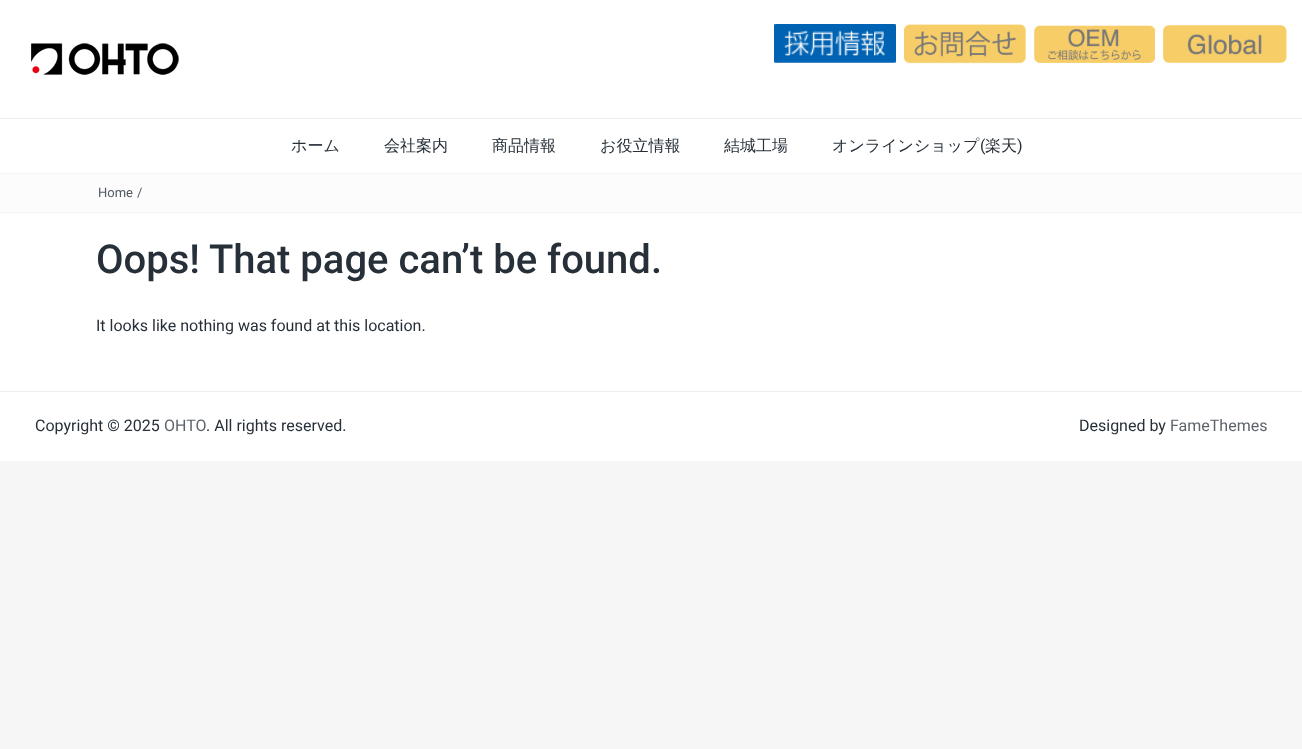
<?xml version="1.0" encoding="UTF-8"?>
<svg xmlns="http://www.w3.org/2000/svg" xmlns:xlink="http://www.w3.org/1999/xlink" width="1302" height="749">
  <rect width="100%" height="100%" fill="#f6f6f6" />
  <rect width="1302" height="461" fill="#ffffff" />
  <image x="31" y="43" width="148" height="32" xlink:href="image1.png" />
  <image x="774" y="24" width="122" height="39" xlink:href="image2.png" />
  <image x="904" y="24" width="122" height="40" xlink:href="image3.png" />
  <image x="1034" y="25" width="121" height="38" xlink:href="image4.png" />
  <image x="1163" y="25" width="124" height="38" xlink:href="image5.png" />
  <rect y="118" width="1302" height="1" fill="#ededed" />
  <rect y="174" width="1302" height="38" fill="#fcfcfc" />
  <rect y="173" width="1302" height="1" fill="#f4f4f4" />
  <rect y="212" width="1302" height="1" fill="#f4f4f4" />
  <rect y="391" width="1302" height="1" fill="#ededed" />
  <text x="291" y="151" style="font-family: WenQuanYi Zen Hei; font-size: 16px; font-weight: 500; fill: #273039">ホーム</text>
  <text x="384" y="151" style="font-family: WenQuanYi Zen Hei; font-size: 16px; font-weight: 500; fill: #273039">会社案内</text>
  <text x="492" y="151" style="font-family: WenQuanYi Zen Hei; font-size: 16px; font-weight: 500; fill: #273039">商品情報</text>
  <text x="600" y="151" style="font-family: WenQuanYi Zen Hei; font-size: 16px; font-weight: 500; fill: #273039">お役立情報</text>
  <text x="724" y="151" style="font-family: WenQuanYi Zen Hei; font-size: 16px; font-weight: 500; fill: #273039">結城工場</text>
  <text x="832" y="151" style="font-family: WenQuanYi Zen Hei; font-size: 16px; font-weight: 500; fill: #273039">オンラインショップ</text>
  <text x="980" y="151" style="font-family: Roboto; font-size: 16px; fill: #273039">(</text>
  <text x="985" y="151" style="font-family: WenQuanYi Zen Hei; font-size: 16px; font-weight: 500; fill: #273039">楽天</text>
  <text x="1017" y="151" style="font-family: Roboto; font-size: 16px; fill: #273039">)</text>
  <text x="98" y="197" style="font-family: Roboto; font-size: 13px; fill: #525960">Home</text>
  <text x="137" y="197" style="font-family: Roboto; font-size: 13px; fill: #525960">/</text>
  <text x="96" y="273" style="font-family: Roboto; font-size: 40px; font-weight: 500; fill: #273039">Oops! That page can’t be found.</text>
  <text x="96" y="331" style="font-family: Roboto; font-size: 16px; fill: #273039">It looks like nothing was found at this location.</text>
  <text x="35" y="431" style="font-family: Roboto; font-size: 16px; fill: #273039">Copyright © 2025</text>
  <text x="164" y="431" style="font-family: Roboto; font-size: 16px; fill: #5d646b">OHTO</text>
  <text x="206" y="431" style="font-family: Roboto; font-size: 16px; fill: #273039">. All rights reserved.</text>
  <text x="1079" y="431" style="font-family: Roboto; font-size: 16px; fill: #273039">Designed by</text>
  <text x="1170" y="431" style="font-family: Roboto; font-size: 16px; fill: #5d646b">FameThemes</text>
</svg>
